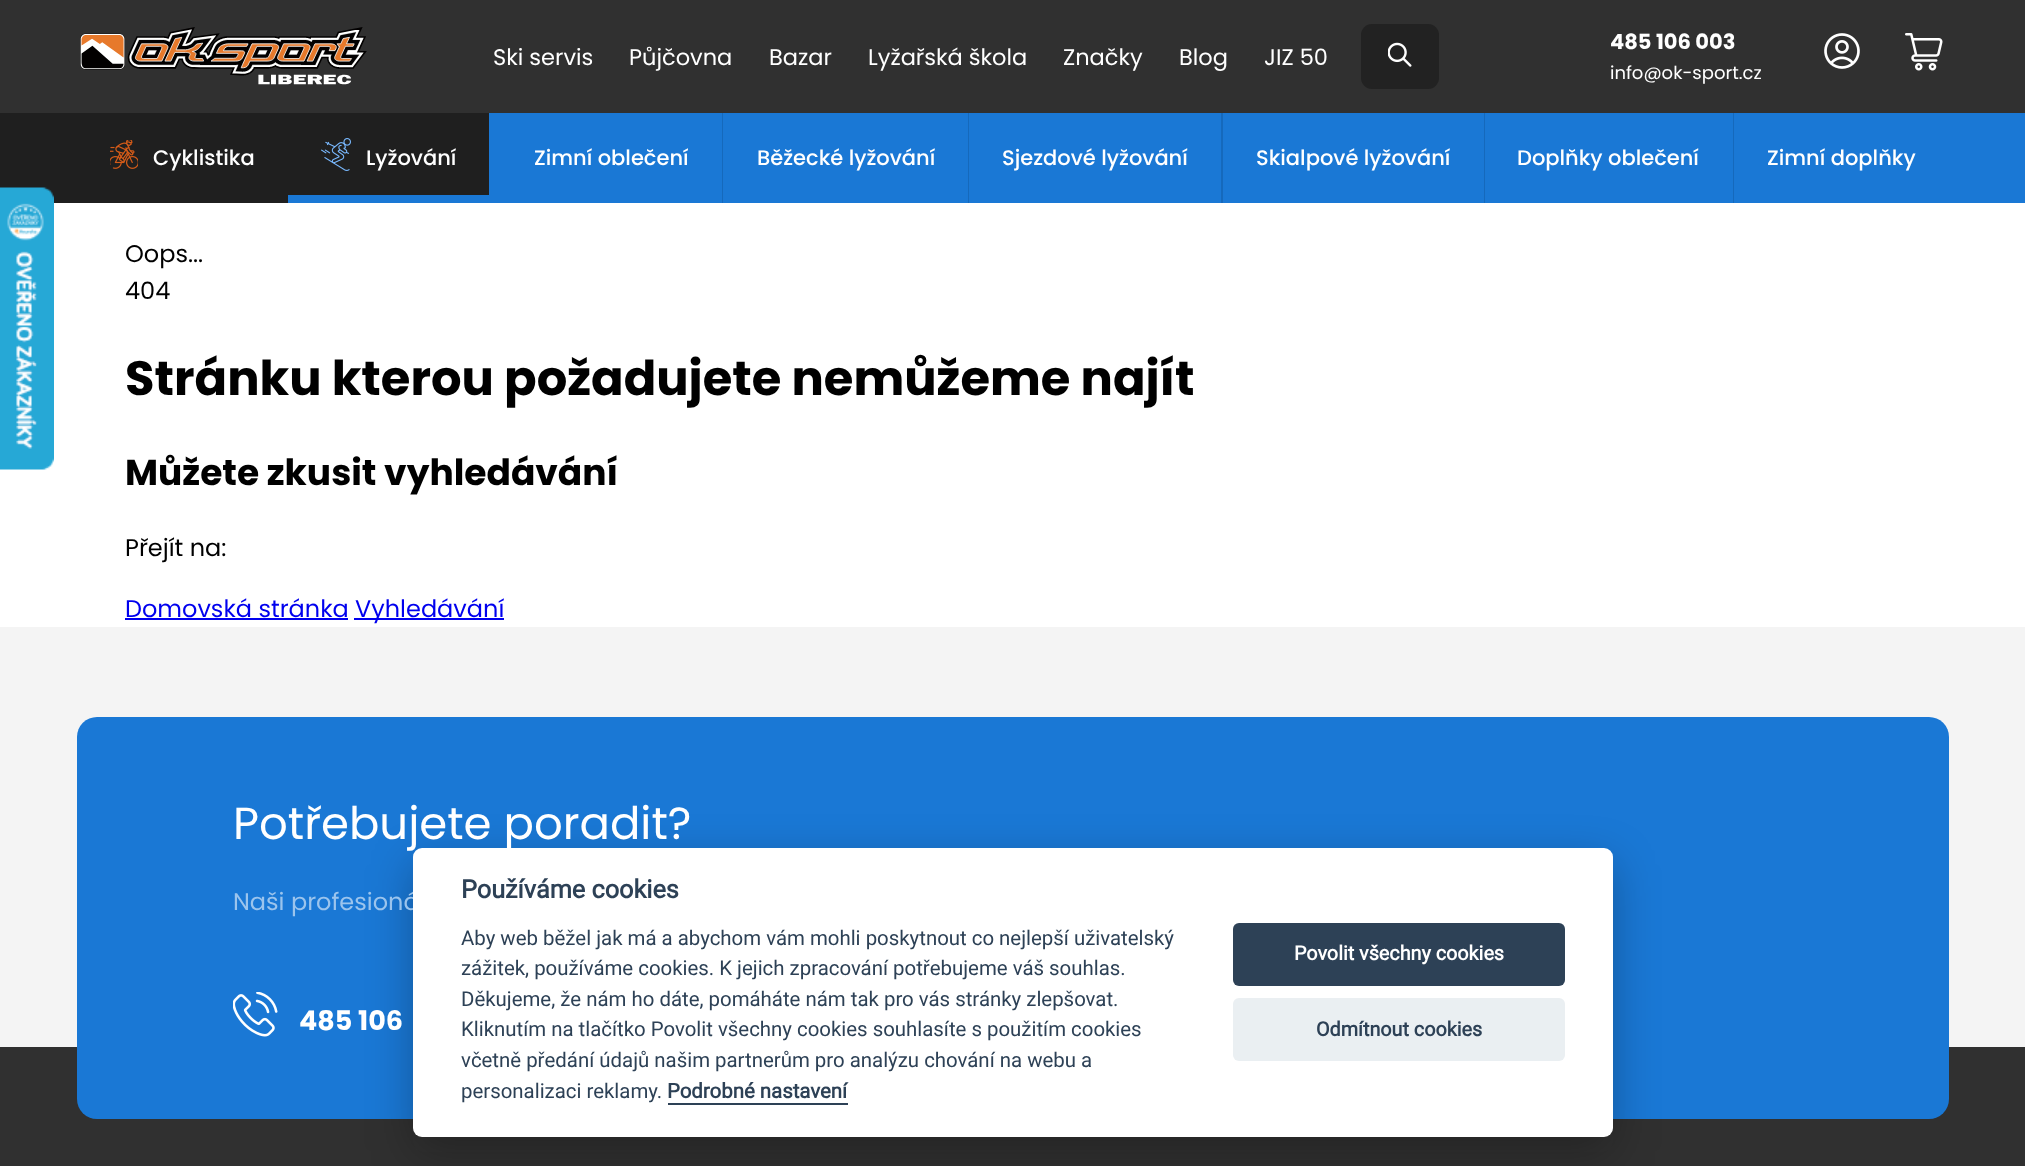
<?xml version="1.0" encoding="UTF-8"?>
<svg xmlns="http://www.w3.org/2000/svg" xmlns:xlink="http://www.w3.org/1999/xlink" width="2025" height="1166">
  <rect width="100%" height="100%" fill="#ffffff" />
  <rect y="113" width="489" height="90" fill="#1f1f1f" />
  <image x="0" y="187" width="54" height="283" xlink:href="image1.png" />
  <rect width="2025" height="113" fill="#303030" />
  <image x="80" y="27" width="287" height="58" xlink:href="image2.png" />
  <rect x="1361" y="24" width="78" height="65" rx="11" fill="#222222" />
  <image x="1388" y="42" width="24" height="25" xlink:href="image3.png" />
  <image x="1824" y="33" width="36" height="36" xlink:href="image4.png" />
  <image x="1905" y="33" width="38" height="38" xlink:href="image5.png" />
  <rect x="1734" y="113" width="291" height="90" fill="#1a78d5" />
  <image x="110" y="140" width="28" height="29" xlink:href="image6.png" />
  <image x="321" y="138" width="30" height="33" xlink:href="image7.png" />
  <rect x="288" y="195" width="201" height="8" fill="#1a78d5" />
  <rect x="489" y="113" width="995" height="90" fill="#1a78d5" />
  <rect x="722" y="113" width="1" height="90" fill="#1569bc" />
  <rect x="968" y="113" width="1" height="90" fill="#1569bc" />
  <rect x="1221" y="113" width="2" height="90" fill="#1569bc" />
  <rect x="1484" y="113" width="1" height="90" fill="#1569bc" />
  <rect x="1485" y="113" width="248" height="90" fill="#1a78d5" />
  <rect x="1733" y="113" width="1" height="90" fill="#1569bc" />
  <rect x="125" y="618" width="223" height="2" fill="#0000ee" />
  <rect x="354" y="618" width="150" height="2" fill="#0000ee" />
  <rect y="627" width="2025" height="420" fill="#f4f4f4" />
  <rect y="1047" width="2025" height="119" fill="#303030" />
  <rect x="77" y="717" width="1872" height="402" rx="20" fill="#1a78d5" />
  <image x="233" y="992" width="45" height="45" xlink:href="image8.png" />
  <rect x="413" y="863" width="1200" height="289" rx="9" fill="#020203" fill-opacity="0.28" filter="blur(22.5px)" />
  <text x="493" y="65" style="font-family: Poppins; font-size: 22.5px; fill: #ffffff">Ski servis</text>
  <text x="629" y="65" style="font-family: Poppins; font-size: 22.5px; fill: #ffffff">Půjčovna</text>
  <text x="769" y="65" style="font-family: Poppins; font-size: 22.5px; fill: #ffffff">Bazar</text>
  <text x="868" y="65" style="font-family: Poppins; font-size: 22.5px; fill: #ffffff">Lyžařská škola</text>
  <text x="1063" y="65" style="font-family: Poppins; font-size: 22.5px; fill: #ffffff">Značky</text>
  <text x="1179" y="65" style="font-family: Poppins; font-size: 22.5px; fill: #ffffff">Blog</text>
  <text x="1264" y="65" style="font-family: Poppins; font-size: 22.5px; fill: #ffffff">JIZ 50</text>
  <text x="1610" y="49" style="font-family: Poppins; font-size: 21px; font-weight: bold; fill: #ffffff">485 106 003</text>
  <text x="1610" y="79" style="font-family: Poppins; font-size: 18px; fill: #ffffff">info@ok-sport.cz</text>
  <text x="153" y="165" style="font-family: Poppins; font-size: 21px; font-weight: 500; fill: #ffffff">Cyklistika</text>
  <text x="366" y="165" style="font-family: Poppins; font-size: 21px; font-weight: 500; fill: #ffffff">Lyžování</text>
  <text x="534" y="165" style="font-family: Poppins; font-size: 21px; font-weight: 500; fill: #ffffff">Zimní oblečení</text>
  <text x="757" y="165" style="font-family: Poppins; font-size: 21px; font-weight: 500; fill: #ffffff">Běžecké lyžování</text>
  <text x="1002" y="165" style="font-family: Poppins; font-size: 21px; font-weight: 500; fill: #ffffff">Sjezdové lyžování</text>
  <text x="1256" y="165" style="font-family: Poppins; font-size: 21px; font-weight: 500; fill: #ffffff">Skialpové lyžování</text>
  <text x="1517" y="165" style="font-family: Poppins; font-size: 21px; font-weight: 500; fill: #ffffff">Doplňky oblečení</text>
  <text x="1767" y="165" style="font-family: Poppins; font-size: 21px; font-weight: 500; fill: #ffffff">Zimní doplňky</text>
  <text x="125" y="262" style="font-family: Poppins; font-size: 24px; fill: #000000">Oops...</text>
  <text x="125" y="299" style="font-family: Poppins; font-size: 24px; fill: #000000">404</text>
  <text x="125" y="395" style="font-family: Poppins; font-size: 48px; font-weight: bold; fill: #000000">Stránku kterou požadujete nemůžeme najít</text>
  <text x="125" y="485" style="font-family: Poppins; font-size: 36px; font-weight: bold; fill: #000000">Můžete zkusit vyhledávání</text>
  <text x="125" y="556" style="font-family: Poppins; font-size: 24px; fill: #000000">Přejít na:</text>
  <text x="125" y="617" style="font-family: Poppins; font-size: 24px; fill: #0000ee">Domovská stránka</text>
  <text x="355" y="617" style="font-family: Poppins; font-size: 24px; fill: #0000ee">Vyhledávání</text>
  <text x="233" y="839" style="font-family: Poppins; font-size: 45px; fill: #ffffff">Potřebujete poradit?</text>
  <text x="233" y="910" style="font-family: Poppins; font-size: 24px; fill: #9bc4ed">Naši profesioná</text>
  <text x="299" y="1030" style="font-family: Poppins; font-size: 27px; font-weight: bold; fill: #ffffff">485 106</text>
  <rect x="413" y="848" width="1200" height="289" rx="9" fill="#ffffff" />
  <text x="461" y="898" style="font-family: Roboto; font-size: 25.25px; font-weight: bold; fill: #2d4156">Používáme cookies</text>
  <text x="461" y="945" style="font-family: Roboto; font-size: 20.4px; fill: #2d4156">Aby web běžel jak má a abychom vám mohli poskytnout co nejlepší uživatelský</text>
  <text x="461" y="975" style="font-family: Roboto; font-size: 20.4px; fill: #2d4156">zážitek, používáme cookies. K jejich zpracování potřebujeme váš souhlas.</text>
  <text x="461" y="1006" style="font-family: Roboto; font-size: 20.4px; fill: #2d4156">Děkujeme, že nám ho dáte, pomáháte nám tak pro vás stránky zlepšovat.</text>
  <text x="461" y="1036" style="font-family: Roboto; font-size: 20.4px; fill: #2d4156">Kliknutím na tlačítko Povolit všechny cookies souhlasíte s použitím cookies</text>
  <text x="461" y="1067" style="font-family: Roboto; font-size: 20.4px; fill: #2d4156">včetně předání údajů našim partnerům pro analýzu chování na webu a</text>
  <text x="461" y="1098" style="font-family: Roboto; font-size: 20.4px; fill: #2d4156">personalizaci reklamy.</text>
  <text x="667" y="1098" style="font-family: Roboto; font-size: 20.4px; font-weight: bold; fill: #2d4156">Podrobné nastavení</text>
  <rect x="668" y="1103" width="180" height="2" fill="#2d4156" />
  <rect x="1233" y="923" width="332" height="63" rx="6" fill="#2d4156" />
  <text x="1294" y="960" style="font-family: Roboto; font-size: 19.75px; font-weight: bold; fill: #ffffff">Povolit všechny cookies</text>
  <rect x="1233" y="998" width="332" height="63" rx="6" fill="#eaeff2" />
  <text x="1316" y="1036" style="font-family: Roboto; font-size: 19.75px; font-weight: bold; fill: #2d4156">Odmítnout cookies</text>
</svg>
